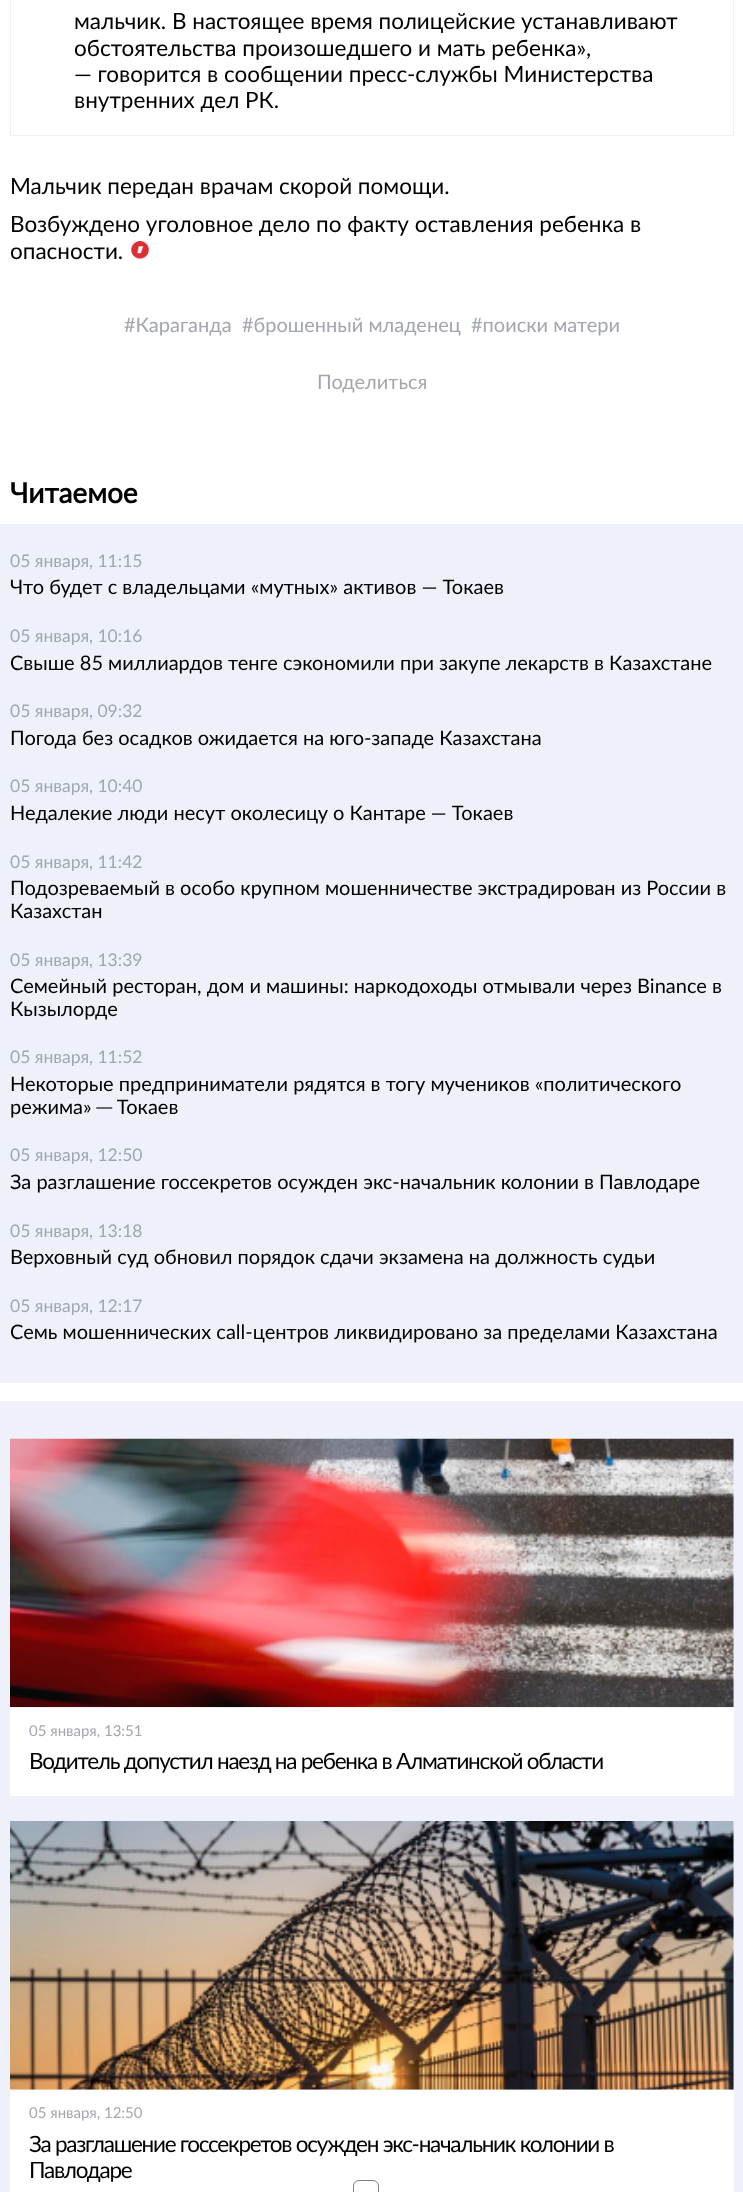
<?xml version="1.0" encoding="UTF-8"?>
<svg xmlns="http://www.w3.org/2000/svg" xmlns:xlink="http://www.w3.org/1999/xlink" width="743" height="2192">
  <rect width="100%" height="100%" fill="#ffffff" />
  <rect x="10.5" y="-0.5" width="723" height="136" fill="none" stroke="#eef1f9" />
  <image x="131" y="241" width="18" height="18" xlink:href="image1.png" />
  <rect y="524" width="743" height="859" fill="#eef1f9" />
  <rect y="1401" width="743" height="791" fill="#eef1f9" />
  <rect x="10" y="1439" width="724" height="357" fill="#ffffff" />
  <image x="10" y="1438" width="724" height="270" xlink:href="image2.png" />
  <rect x="10" y="1821" width="724" height="371" fill="#ffffff" />
  <image x="10" y="1821" width="724" height="269" xlink:href="image3.png" />
  <rect x="353.5" y="2180.5" width="25" height="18" rx="5.5" fill="none" stroke="#808080" />
  <text x="74" y="29" style="font-family: Lato; font-size: 22.5px; fill: #000000">мальчик. В настоящее время полицейские устанавливают</text>
  <text x="74" y="56" style="font-family: Lato; font-size: 22.5px; fill: #000000">обстоятельства произошедшего и мать ребенка»,</text>
  <text x="74" y="82" style="font-family: Lato; font-size: 22.5px; fill: #000000">— говорится в сообщении пресс-службы Министерства</text>
  <text x="74" y="108" style="font-family: Lato; font-size: 22.5px; fill: #000000">внутренних дел РК.</text>
  <text x="10" y="194" style="font-family: Lato; font-size: 22.5px; fill: #000000">Мальчик передан врачам скорой помощи.</text>
  <text x="10" y="232" style="font-family: Lato; font-size: 22.5px; fill: #000000">Возбуждено уголовное дело по факту оставления ребенка в</text>
  <text x="10" y="259" style="font-family: Lato; font-size: 22.5px; fill: #000000">опасности.</text>
  <text x="124" y="332" style="font-family: Lato; font-size: 20px; fill: #a2a6b0">#Караганда</text>
  <text x="242" y="332" style="font-family: Lato; font-size: 20px; fill: #a2a6b0">#брошенный младенец</text>
  <text x="471" y="332" style="font-family: Lato; font-size: 20px; fill: #a2a6b0">#поиски матери</text>
  <text x="317" y="389" style="font-family: Lato; font-size: 20px; fill: #a2a6b0">Поделиться</text>
  <text x="10" y="503" style="font-family: Lato; font-size: 28px; font-weight: bold; fill: #000000">Читаемое</text>
  <text x="10" y="567" style="font-family: Lato; font-size: 17.5px; fill: #a2a6b0">05 января, 11:15</text>
  <text x="10" y="594" style="font-family: Lato; font-size: 20px; fill: #000000">Что будет с владельцами «мутных» активов — Токаев</text>
  <text x="10" y="642" style="font-family: Lato; font-size: 17.5px; fill: #a2a6b0">05 января, 10:16</text>
  <text x="10" y="670" style="font-family: Lato; font-size: 20px; fill: #000000">Свыше 85 миллиардов тенге сэкономили при закупе лекарств в Казахстане</text>
  <text x="10" y="717" style="font-family: Lato; font-size: 17.5px; fill: #a2a6b0">05 января, 09:32</text>
  <text x="10" y="745" style="font-family: Lato; font-size: 20px; fill: #000000">Погода без осадков ожидается на юго-западе Казахстана</text>
  <text x="10" y="792" style="font-family: Lato; font-size: 17.5px; fill: #a2a6b0">05 января, 10:40</text>
  <text x="10" y="820" style="font-family: Lato; font-size: 20px; fill: #000000">Недалекие люди несут околесицу о Кантаре — Токаев</text>
  <text x="10" y="868" style="font-family: Lato; font-size: 17.5px; fill: #a2a6b0">05 января, 11:42</text>
  <text x="10" y="895" style="font-family: Lato; font-size: 20px; fill: #000000">Подозреваемый в особо крупном мошенничестве экстрадирован из России в</text>
  <text x="10" y="918" style="font-family: Lato; font-size: 20px; fill: #000000">Казахстан</text>
  <text x="10" y="966" style="font-family: Lato; font-size: 17.5px; fill: #a2a6b0">05 января, 13:39</text>
  <text x="10" y="993" style="font-family: Lato; font-size: 20px; fill: #000000">Семейный ресторан, дом и машины: наркодоходы отмывали через Binance в</text>
  <text x="10" y="1016" style="font-family: Lato; font-size: 20px; fill: #000000">Кызылорде</text>
  <text x="10" y="1063" style="font-family: Lato; font-size: 17.5px; fill: #a2a6b0">05 января, 11:52</text>
  <text x="10" y="1091" style="font-family: Lato; font-size: 20px; fill: #000000">Некоторые предприниматели рядятся в тогу мучеников «политического</text>
  <text x="10" y="1114" style="font-family: Lato; font-size: 20px; fill: #000000">режима» ─ Токаев</text>
  <text x="10" y="1161" style="font-family: Lato; font-size: 17.5px; fill: #a2a6b0">05 января, 12:50</text>
  <text x="10" y="1189" style="font-family: Lato; font-size: 20px; fill: #000000">За разглашение госсекретов осужден экс-начальник колонии в Павлодаре</text>
  <text x="10" y="1237" style="font-family: Lato; font-size: 17.5px; fill: #a2a6b0">05 января, 13:18</text>
  <text x="10" y="1264" style="font-family: Lato; font-size: 20px; fill: #000000">Верховный суд обновил порядок сдачи экзамена на должность судьи</text>
  <text x="10" y="1312" style="font-family: Lato; font-size: 17.5px; fill: #a2a6b0">05 января, 12:17</text>
  <text x="10" y="1339" style="font-family: Lato; font-size: 20px; fill: #000000">Семь мошеннических call-центров ликвидировано за пределами Казахстана</text>
  <text x="29" y="1736" style="font-family: Lato; font-size: 15px; fill: #a2a6b0">05 января, 13:51</text>
  <text x="29" y="1769" style="font-family: Lato; font-size: 22.5px; letter-spacing: -1.25px; fill: #000000">Водитель допустил наезд на ребенка в Алматинской области</text>
  <text x="29" y="2118" style="font-family: Lato; font-size: 15px; fill: #a2a6b0">05 января, 12:50</text>
  <text x="29" y="2152" style="font-family: Lato; font-size: 22.5px; letter-spacing: -1.25px; fill: #000000">За разглашение госсекретов осужден экс-начальник колонии в</text>
  <text x="29" y="2178" style="font-family: Lato; font-size: 22.5px; letter-spacing: -1.25px; fill: #000000">Павлодаре</text>
</svg>
